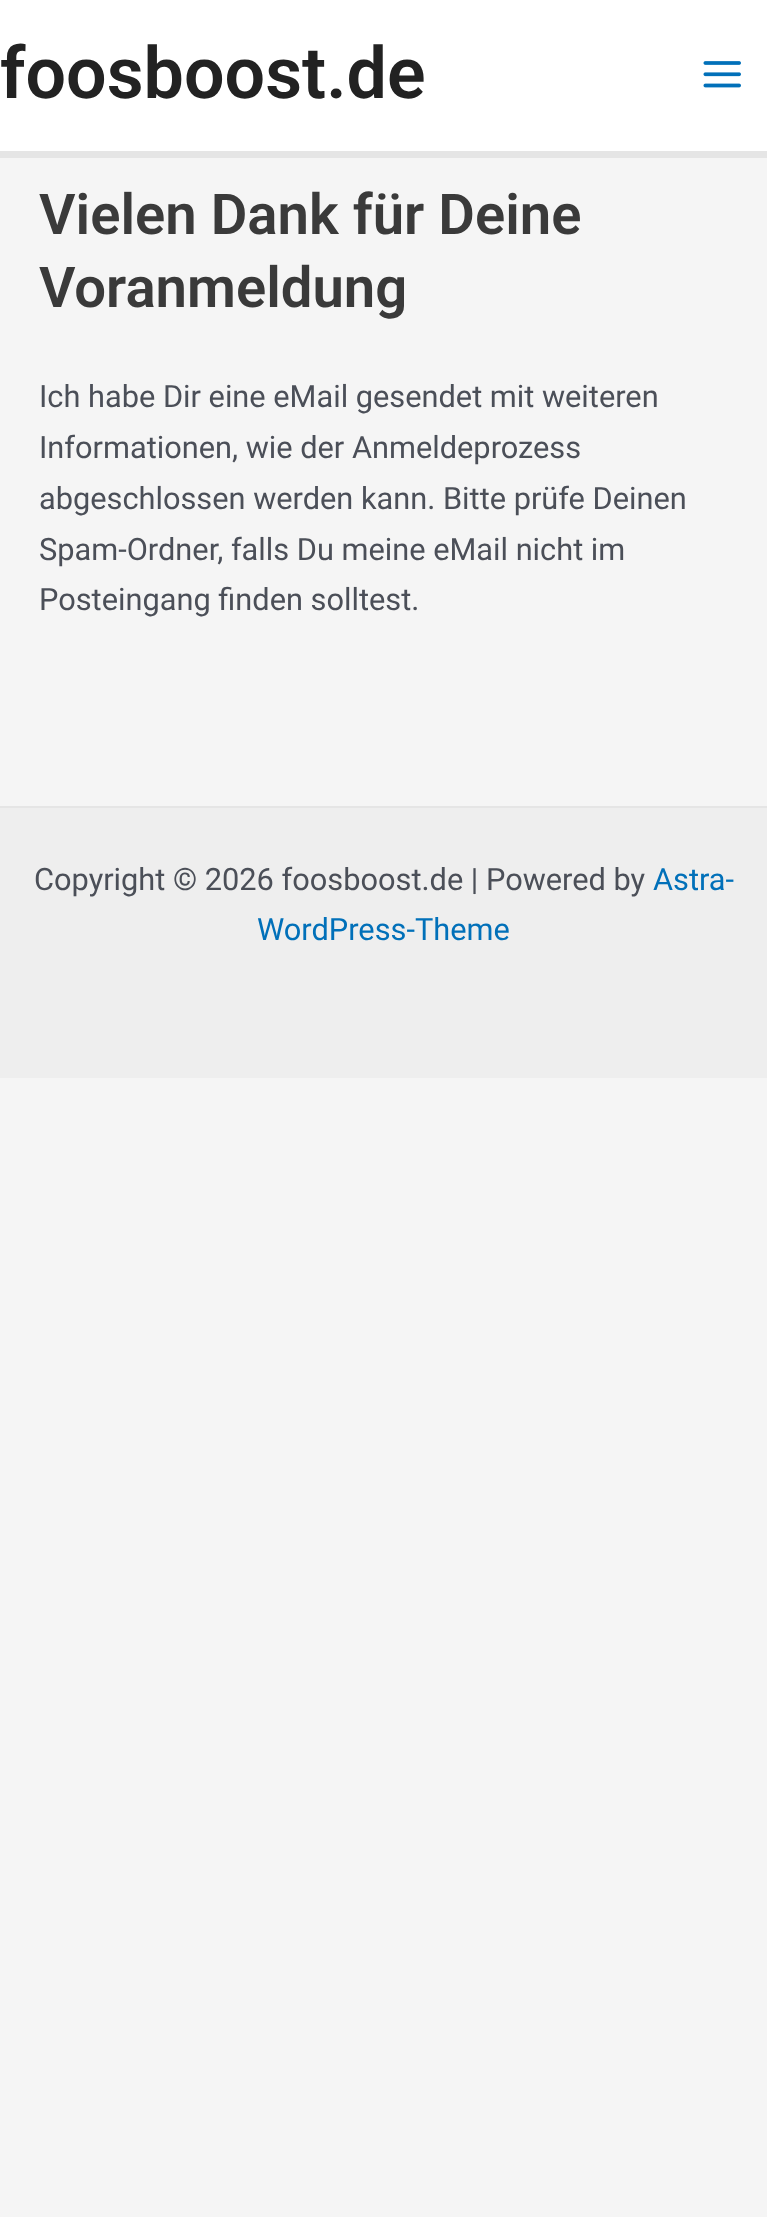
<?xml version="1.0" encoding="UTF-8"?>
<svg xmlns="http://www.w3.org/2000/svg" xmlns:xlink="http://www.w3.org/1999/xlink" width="767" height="2217">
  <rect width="100%" height="100%" fill="#f5f5f5" />
  <rect width="767" height="151" fill="#ffffff" />
  <rect y="151" width="767" height="7" fill="#e5e5e5" />
  <image x="703" y="61" width="38" height="27" xlink:href="image1.png" />
  <rect y="808" width="767" height="270" fill="#eeeeee" />
  <rect y="806" width="767" height="2" fill="#e5e5e5" />
  <text x="0" y="98" style="font-family: Roboto; font-size: 71.75px; font-weight: 600; fill: #222222">foosboost.de</text>
  <text x="39" y="234" style="font-family: Roboto; font-size: 56.25px; font-weight: 600; fill: #3a3a3a">Vielen Dank für Deine</text>
  <text x="39" y="307" style="font-family: Roboto; font-size: 56.25px; font-weight: 600; fill: #3a3a3a">Voranmeldung</text>
  <text x="39" y="407" style="font-family: Roboto; font-size: 30.75px; fill: #4b4f58">Ich habe Dir eine eMail gesendet mit weiteren</text>
  <text x="39" y="458" style="font-family: Roboto; font-size: 30.75px; fill: #4b4f58">Informationen, wie der Anmeldeprozess</text>
  <text x="39" y="509" style="font-family: Roboto; font-size: 30.75px; fill: #4b4f58">abgeschlossen werden kann. Bitte prüfe Deinen</text>
  <text x="39" y="560" style="font-family: Roboto; font-size: 30.75px; fill: #4b4f58">Spam-Ordner, falls Du meine eMail nicht im</text>
  <text x="39" y="610" style="font-family: Roboto; font-size: 30.75px; fill: #4b4f58">Posteingang finden solltest.</text>
  <text x="34" y="890" style="font-family: Roboto; font-size: 30.75px; fill: #4b4f58">Copyright © 2026 foosboost.de | Powered by</text>
  <text x="653" y="890" style="font-family: Roboto; font-size: 30.75px; fill: #0170b9">Astra-</text>
  <text x="257" y="940" style="font-family: Roboto; font-size: 30.75px; fill: #0170b9">WordPress-Theme</text>
</svg>
